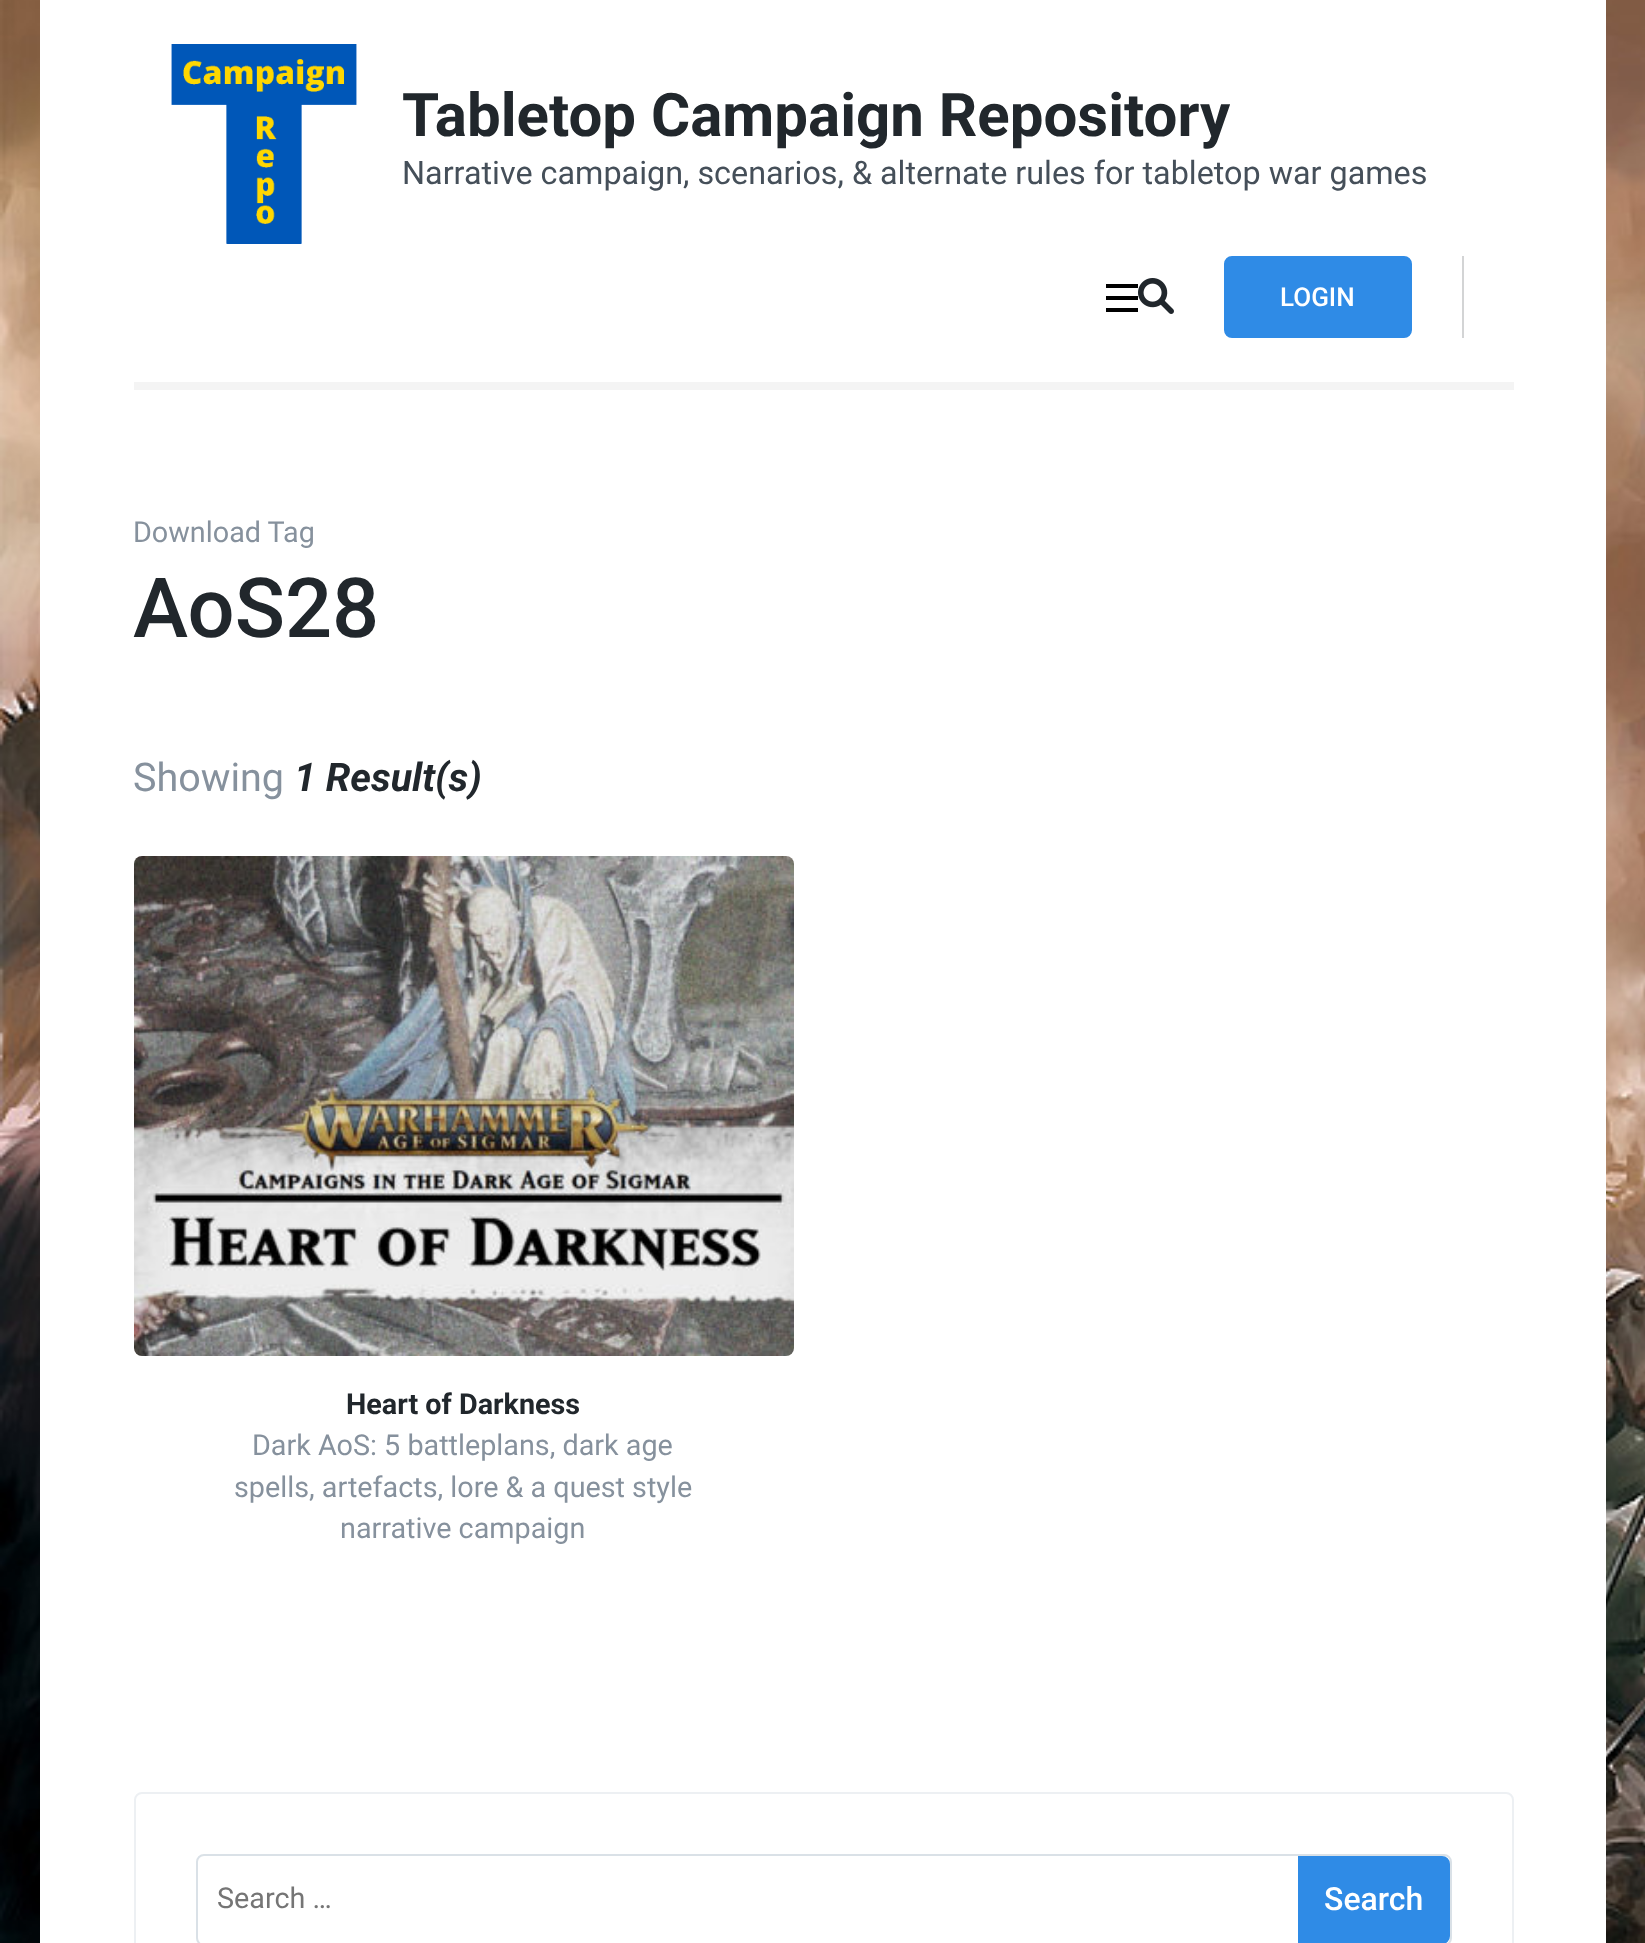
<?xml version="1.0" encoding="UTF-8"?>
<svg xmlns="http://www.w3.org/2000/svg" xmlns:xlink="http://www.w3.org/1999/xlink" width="1645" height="1943">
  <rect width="100%" height="100%" fill="#ffffff" />
  <image x="0" y="0" width="1645" height="1943" xlink:href="image1.png" />
  <rect x="40" width="1566" height="1943" fill="#ffffff" />
  <rect x="134" y="382" width="1380" height="8" fill="#f4f4f4" />
  <image x="171" y="44" width="186" height="200" xlink:href="image2.png" />
  <rect x="1106" y="284" width="32" height="4" fill="#000000" />
  <rect x="1106" y="296" width="32" height="4" fill="#000000" />
  <rect x="1106" y="308" width="32" height="4" fill="#000000" />
  <rect x="1462" y="256" width="2" height="82" fill="#d3d4d5" />
  <image x="1138" y="278" width="36" height="36" xlink:href="image3.png" />
  <rect x="1225" y="257" width="186" height="80" rx="7" fill="#2f8be6" stroke="#2f8be6" stroke-width="2" />
  <image x="134" y="856" width="660" height="500" xlink:href="image4.png" />
  <rect x="135" y="1793" width="1378" height="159" rx="7" fill="none" stroke="#edf0f3" stroke-width="2" />
  <rect x="197" y="1855" width="1254" height="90" rx="7" fill="none" stroke="#dae1e7" stroke-width="2" />
  <path d="M 1299 1857 h 143 c 4 0 7 3 7 7 v 72 c 0 4 -3 7 -7 7 h -143 z" fill="#2f8be6" stroke="#2f8be6" stroke-width="2" />
  <text x="402" y="136" style="font-family: Roboto; font-size: 60px; font-weight: bold; fill: #21272c">Tabletop Campaign Repository</text>
  <text x="402" y="184" style="font-family: Roboto; font-size: 32.35px; fill: #454f59">Narrative campaign, scenarios, &amp; alternate rules for tabletop war games</text>
  <text x="1280" y="306" style="font-family: Roboto; font-size: 26px; font-weight: 500; fill: #ffffff">LOGIN</text>
  <text x="133" y="542" style="font-family: Roboto; font-size: 28.75px; fill: #86919d">Download Tag</text>
  <text x="133" y="637" style="font-family: Roboto; font-size: 83px; font-weight: 500; fill: #21272c">AoS28</text>
  <text x="133" y="791" style="font-family: Roboto; font-size: 39.5px; fill: #86919d">Showing</text>
  <text x="294" y="791" style="font-family: Roboto; font-size: 39.5px; font-weight: bold; font-style: italic; fill: #21272c">1 Result(s)</text>
  <text x="346" y="1414" style="font-family: Roboto; font-size: 28.75px; font-weight: bold; fill: #21272c">Heart of Darkness</text>
  <text x="252" y="1455" style="font-family: Roboto; font-size: 28.75px; fill: #86919d">Dark AoS: 5 battleplans, dark age</text>
  <text x="234" y="1497" style="font-family: Roboto; font-size: 28.75px; fill: #86919d">spells, artefacts, lore &amp; a quest style</text>
  <text x="340" y="1538" style="font-family: Roboto; font-size: 28.75px; fill: #86919d">narrative campaign</text>
  <text x="217" y="1908" style="font-family: Roboto; font-size: 28.75px; fill: #757575">Search …</text>
  <text x="1324" y="1910" style="font-family: Roboto; font-size: 32px; font-weight: 500; fill: #ffffff">Search</text>
</svg>
